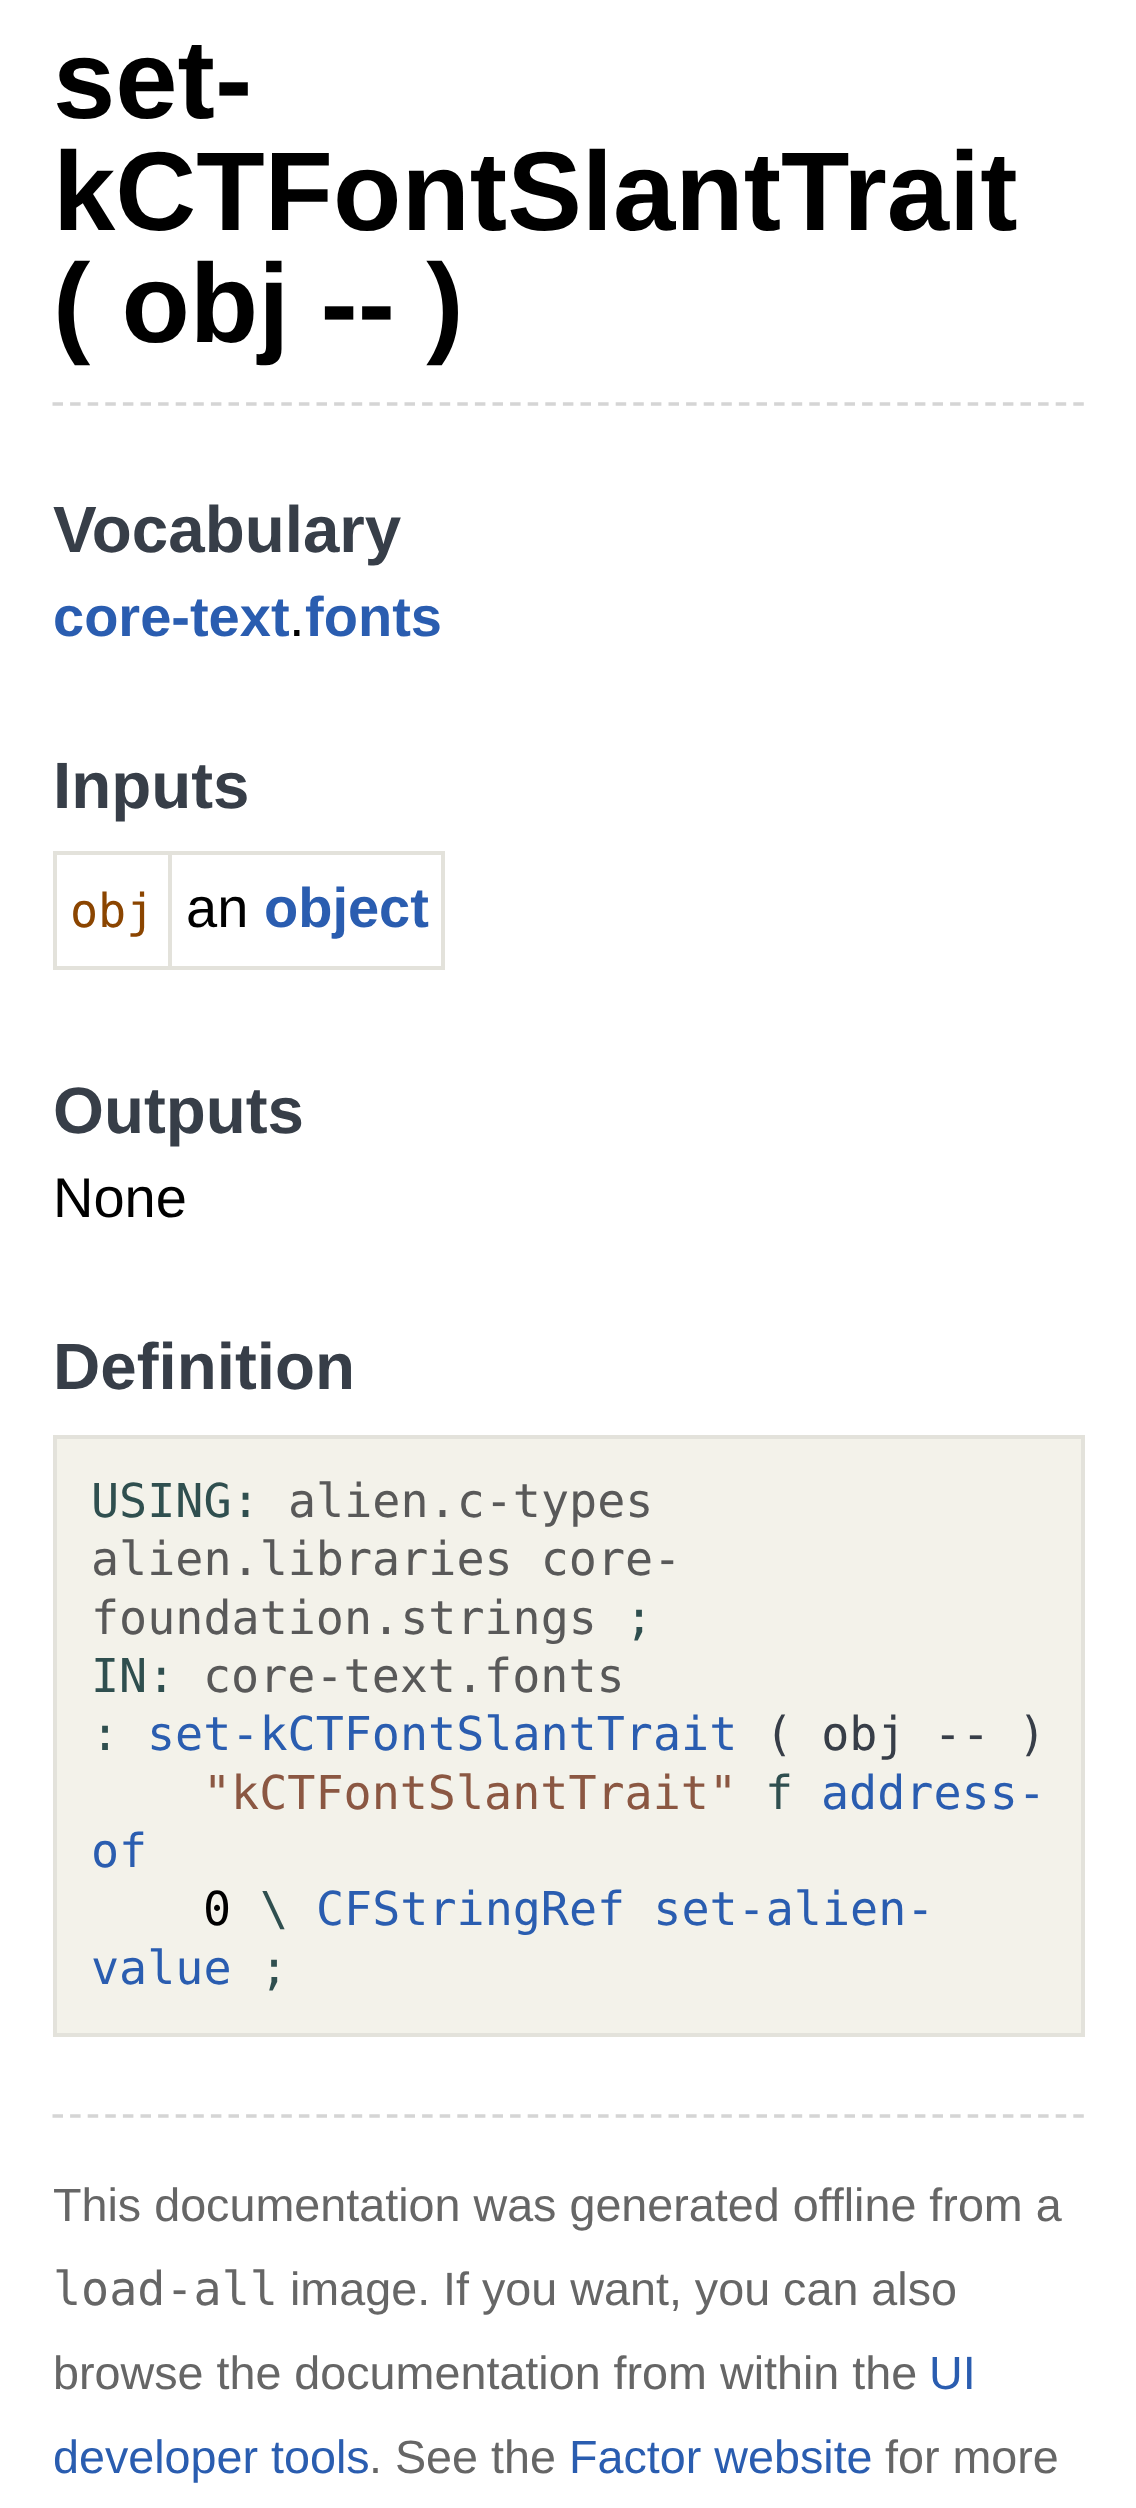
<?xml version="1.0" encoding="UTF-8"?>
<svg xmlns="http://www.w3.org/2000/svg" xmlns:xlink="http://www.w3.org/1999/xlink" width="1136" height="2508">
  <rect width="100%" height="100%" fill="#ffffff" />
  <path d="M 52.5 404 h 1032.5" fill="none" stroke="#d5d5d5" stroke-width="3.5" stroke-dasharray="10.5 7.1" />
  <rect x="168" y="851" width="277" height="4" fill="#e3e2db" />
  <rect x="441" y="851" width="4" height="119" fill="#e3e2db" />
  <rect x="168" y="966" width="277" height="4" fill="#e3e2db" />
  <rect x="168" y="851" width="4" height="119" fill="#e3e2db" />
  <rect x="53" y="851" width="119" height="4" fill="#e3e2db" />
  <rect x="53" y="966" width="119" height="4" fill="#e3e2db" />
  <rect x="53" y="851" width="4" height="119" fill="#e3e2db" />
  <rect x="55" y="1437" width="1028" height="598" fill="#f3f2ea" stroke="#e3e2db" stroke-width="4" />
  <path d="M 52.5 2116 h 1032.5" fill="none" stroke="#d5d5d5" stroke-width="3.5" stroke-dasharray="10.5 7.1" />
  <text x="53" y="118" style="font-family: Liberation Sans; font-size: 112px; font-weight: bold; fill: #000000">set-</text>
  <text x="53" y="230" style="font-family: Liberation Sans; font-size: 112px; font-weight: bold; fill: #000000">kCTFontSlantTrait</text>
  <text x="53" y="342" style="font-family: Liberation Sans; font-size: 112px; font-weight: bold; fill: #000000">( obj -- )</text>
  <text x="53" y="552" style="font-family: Liberation Sans; font-size: 65.5px; font-weight: bold; fill: #373e48">Vocabulary</text>
  <text x="53" y="636" style="font-family: Liberation Sans; font-size: 56px; font-weight: bold; fill: #2a5db0">core-text fonts</text>
  <text x="289" y="636" style="font-family: Liberation Sans; font-size: 56px; fill: #000000">.</text>
  <text x="53" y="808" style="font-family: Liberation Sans; font-size: 65.5px; font-weight: bold; fill: #373e48">Inputs</text>
  <text x="70" y="927" style="font-family: DejaVu Sans Mono; font-size: 46.7px; fill: #8b4500">obj</text>
  <text x="186" y="927" style="font-family: Liberation Sans; font-size: 56px; fill: #000000">an</text>
  <text x="264" y="927" style="font-family: Liberation Sans; font-size: 56px; font-weight: bold; fill: #2a5db0">object</text>
  <text x="53" y="1133" style="font-family: Liberation Sans; font-size: 65.5px; font-weight: bold; fill: #373e48">Outputs</text>
  <text x="53" y="1217" style="font-family: Liberation Sans; font-size: 56px; fill: #000000">None</text>
  <text x="53" y="1389" style="font-family: Liberation Sans; font-size: 65.5px; font-weight: bold; fill: #373e48">Definition</text>
  <text x="91" y="1517" style="font-family: DejaVu Sans Mono; font-size: 46.7px; fill: #2f4f4f">USING:</text>
  <text x="288" y="1517" style="font-family: DejaVu Sans Mono; font-size: 46.7px; fill: #595959">alien.c-types</text>
  <text x="91" y="1575" style="font-family: DejaVu Sans Mono; font-size: 46.7px; fill: #595959">alien.libraries core-</text>
  <text x="91" y="1634" style="font-family: DejaVu Sans Mono; font-size: 46.7px; fill: #595959">foundation.strings</text>
  <text x="625" y="1634" style="font-family: DejaVu Sans Mono; font-size: 46.7px; fill: #2f4f4f">;</text>
  <text x="91" y="1692" style="font-family: DejaVu Sans Mono; font-size: 46.7px; fill: #2f4f4f">IN:</text>
  <text x="203" y="1692" style="font-family: DejaVu Sans Mono; font-size: 46.7px; fill: #595959">core-text.fonts</text>
  <text x="91" y="1750" style="font-family: DejaVu Sans Mono; font-size: 46.7px; fill: #2f4f4f">:</text>
  <text x="147" y="1750" style="font-family: DejaVu Sans Mono; font-size: 46.7px; fill: #2a5db0">set-kCTFontSlantTrait</text>
  <text x="765" y="1750" style="font-family: DejaVu Sans Mono; font-size: 46.7px; fill: #373e48">( obj -- )</text>
  <text x="203" y="1809" style="font-family: DejaVu Sans Mono; font-size: 46.7px; fill: #8b5742">"kCTFontSlantTrait"</text>
  <text x="765" y="1809" style="font-family: DejaVu Sans Mono; font-size: 46.7px; fill: #2f4f4f">f</text>
  <text x="821" y="1809" style="font-family: DejaVu Sans Mono; font-size: 46.7px; fill: #2a5db0">address-</text>
  <text x="91" y="1867" style="font-family: DejaVu Sans Mono; font-size: 46.7px; fill: #2a5db0">of</text>
  <text x="203" y="1925" style="font-family: DejaVu Sans Mono; font-size: 46.7px; fill: #000000">0</text>
  <text x="260" y="1925" style="font-family: DejaVu Sans Mono; font-size: 46.7px; fill: #2f4f4f">\</text>
  <text x="316" y="1925" style="font-family: DejaVu Sans Mono; font-size: 46.7px; fill: #2a5db0">CFStringRef set-alien-</text>
  <text x="91" y="1984" style="font-family: DejaVu Sans Mono; font-size: 46.7px; fill: #2a5db0">value</text>
  <text x="260" y="1984" style="font-family: DejaVu Sans Mono; font-size: 46.7px; fill: #2f4f4f">;</text>
  <text x="53" y="2221" style="font-family: Liberation Sans; font-size: 46.7px; fill: #666666">This documentation was generated offline from a</text>
  <text x="53" y="2305" style="font-family: DejaVu Sans Mono; font-size: 46.7px; fill: #666666">load-all</text>
  <text x="290" y="2305" style="font-family: Liberation Sans; font-size: 46.7px; fill: #666666">image. If you want, you can also</text>
  <text x="53" y="2389" style="font-family: Liberation Sans; font-size: 46.7px; fill: #666666">browse the documentation from within the</text>
  <text x="929" y="2389" style="font-family: Liberation Sans; font-size: 46.7px; fill: #2a5db0">UI</text>
  <text x="53" y="2473" style="font-family: Liberation Sans; font-size: 46.7px; fill: #2a5db0">developer tools</text>
  <text x="369" y="2473" style="font-family: Liberation Sans; font-size: 46.7px; fill: #666666">. See the</text>
  <text x="569" y="2473" style="font-family: Liberation Sans; font-size: 46.7px; fill: #2a5db0">Factor website</text>
  <text x="885" y="2473" style="font-family: Liberation Sans; font-size: 46.7px; fill: #666666">for more</text>
</svg>
